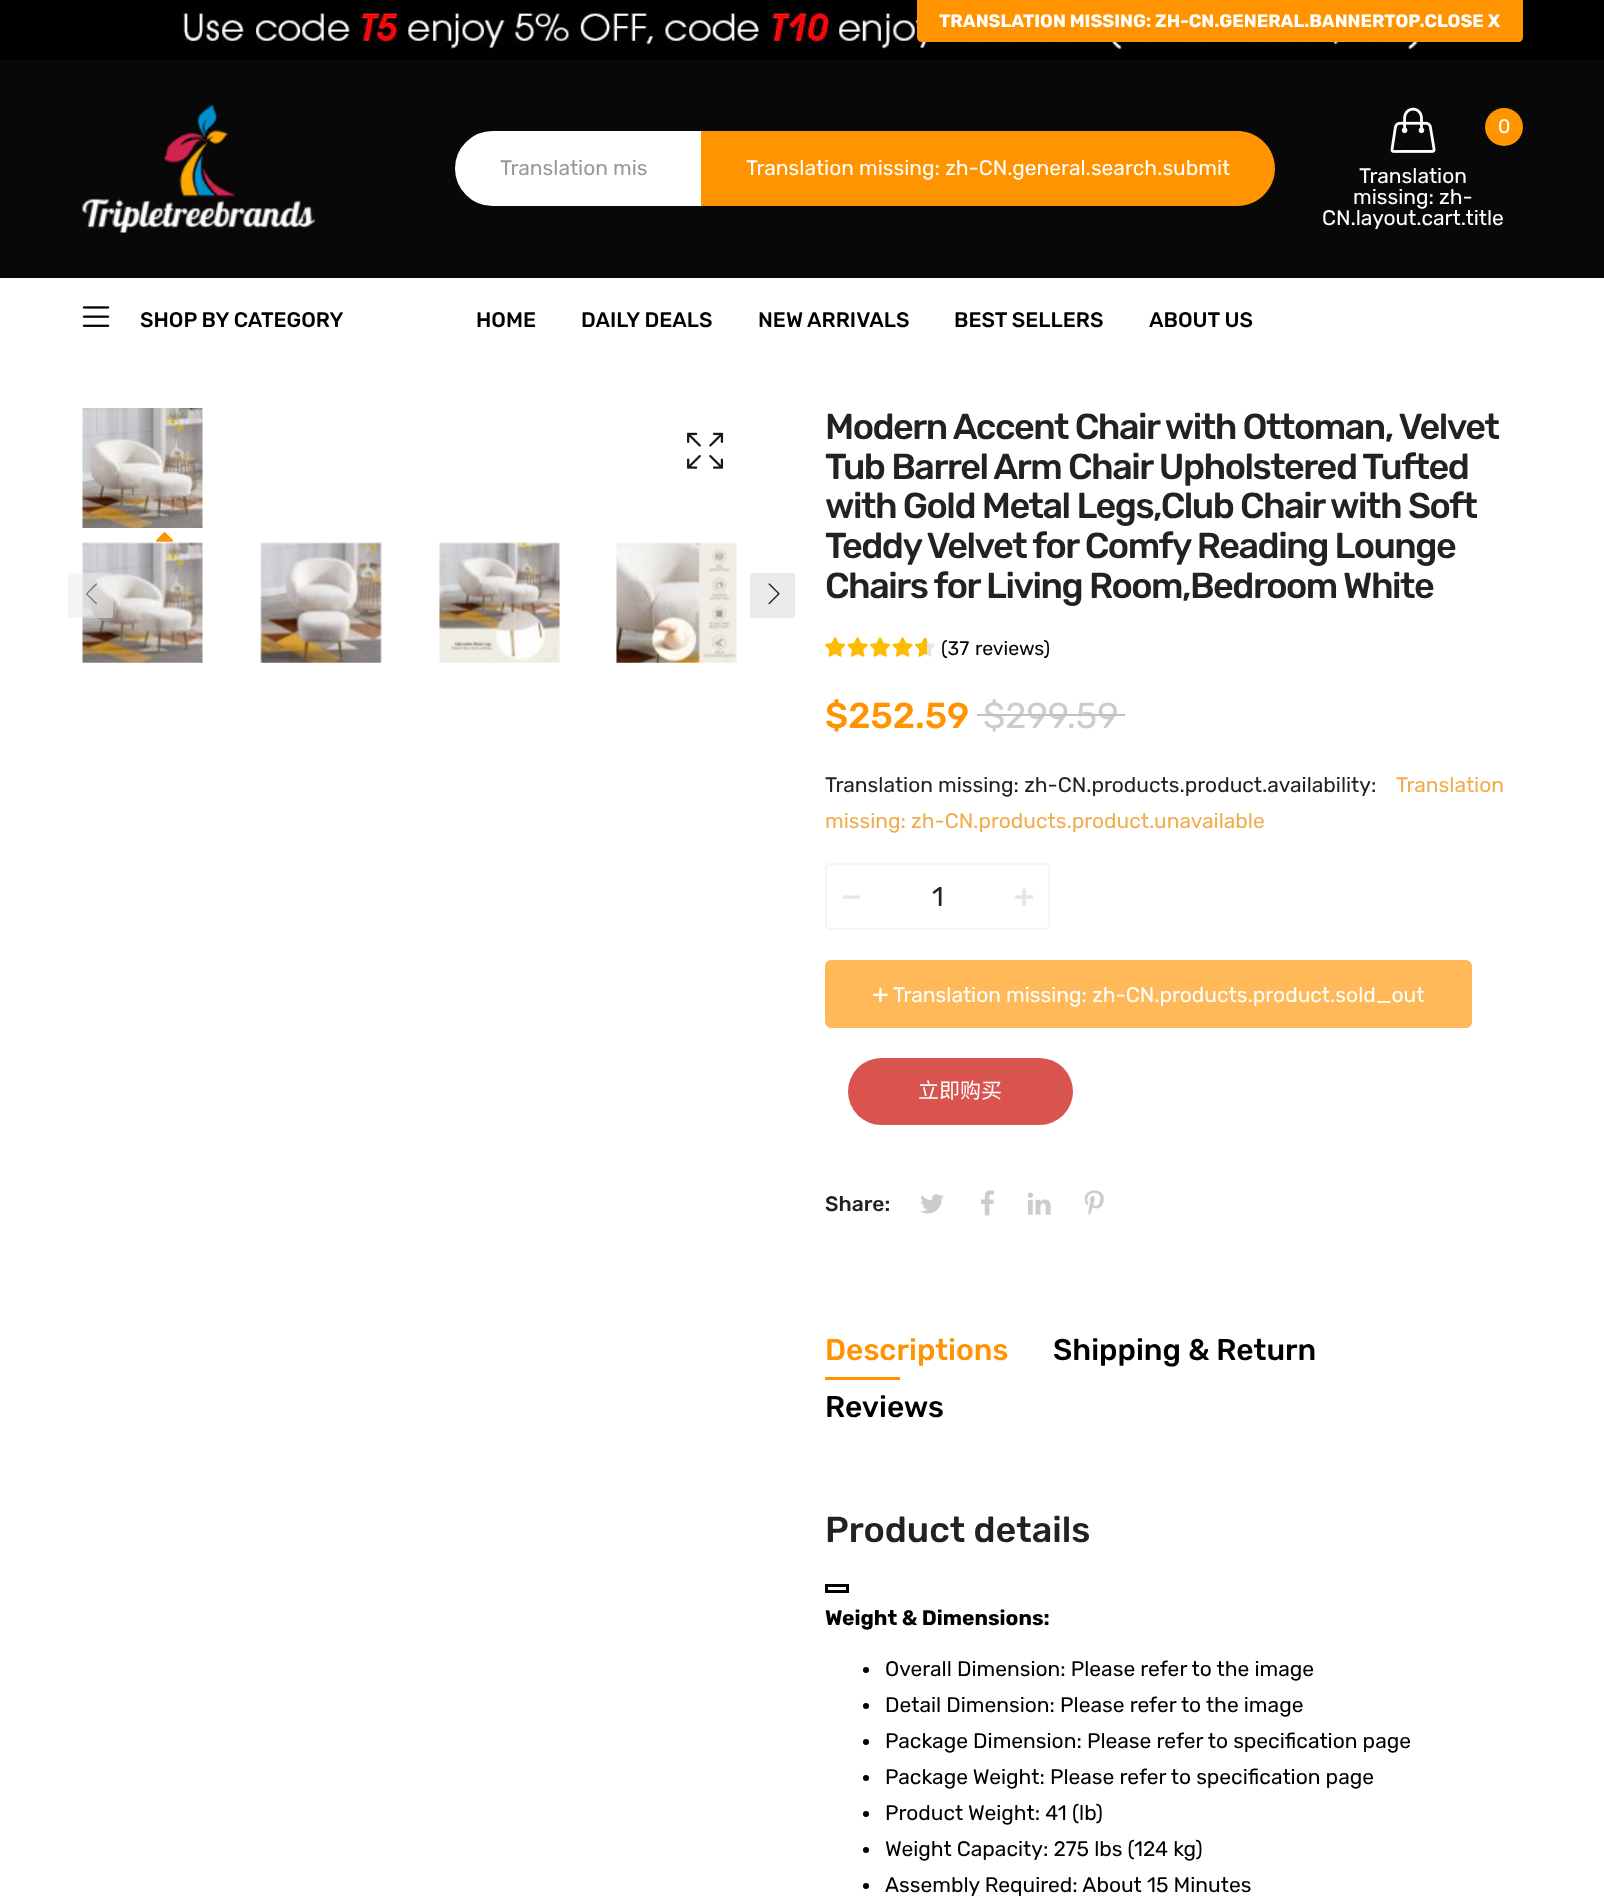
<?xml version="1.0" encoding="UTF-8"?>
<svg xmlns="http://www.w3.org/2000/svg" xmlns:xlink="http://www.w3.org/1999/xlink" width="1604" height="1901">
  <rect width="100%" height="100%" fill="#ffffff" />
  <image x="0" y="0" width="1604" height="60" xlink:href="image1.png" />
  <path d="M 917 0 h 606 v 37 c 0 3 -2 5 -5 5 h -596 c -3 0 -5 -2 -5 -5 z" fill="#ff9300" />
  <rect y="60" width="1604" height="218" fill="#080808" />
  <image x="82" y="105" width="233" height="128" xlink:href="image2.png" />
  <path d="M 492.5 132 h 207.5 v 73 h -207.5 c -20 0 -36.5 -16.5 -36.5 -36.5 c 0 -20 16.5 -36.5 36.5 -36.5 z" fill="#ffffff" stroke="#ffffff" stroke-width="2" />
  <path d="M 701 131 h 536.5 c 20.5 0 37.5 17 37.5 37.5 c 0 20.5 -17 37.5 -37.5 37.5 h -536.5 z" fill="#ff9300" />
  <image x="1390" y="107" width="46" height="46" xlink:href="image3.png" />
  <circle cx="1504" cy="127" r="19" fill="#ff9300" />
  <image x="82" y="306" width="28" height="21" xlink:href="image4.png" />
  <image x="82" y="408" width="121" height="120" xlink:href="image5.png" />
  <image x="687" y="432" width="37" height="37" xlink:href="image6.png" />
  <image x="156" y="532" width="18" height="10" xlink:href="image7.png" />
  <image x="82" y="542" width="121" height="121" xlink:href="image8.png" />
  <image x="260" y="542" width="122" height="121" xlink:href="image9.png" />
  <image x="439" y="542" width="121" height="121" xlink:href="image10.png" />
  <image x="616" y="542" width="121" height="121" xlink:href="image11.png" />
  <rect x="68" y="573" width="45" height="45" rx="1.5" fill="#ebebeb" fill-opacity="0.5" />
  <image x="86" y="583" width="11" height="22" xlink:href="image12.png" />
  <rect x="750" y="573" width="45" height="45" rx="1.5" fill="#ebebeb" />
  <image x="768" y="583" width="12" height="22" xlink:href="image13.png" />
  <image x="825" y="637" width="21" height="20" xlink:href="image14.png" />
  <image x="847" y="637" width="21" height="20" xlink:href="image15.png" />
  <image x="870" y="637" width="21" height="20" xlink:href="image14.png" />
  <image x="892" y="637" width="21" height="20" xlink:href="image15.png" />
  <image x="915" y="637" width="20" height="20" xlink:href="image16.png" />
  <image x="915" y="638" width="12" height="19" xlink:href="image17.png" />
  <rect x="826" y="864" width="223" height="65" rx="4" fill="none" stroke="#f5f5f5" stroke-width="2" />
  <rect x="826" y="961" width="645" height="66" rx="5" fill="#ffb959" stroke="#ffb959" stroke-width="2" />
  <rect x="848" y="1058" width="225" height="67" rx="33.5" fill="#d9534f" />
  <image x="920" y="1194" width="24" height="20" xlink:href="image18.png" />
  <image x="981" y="1190" width="13" height="26" xlink:href="image19.png" />
  <image x="1028" y="1192" width="23" height="23" xlink:href="image20.png" />
  <image x="1085" y="1190" width="19" height="26" xlink:href="image21.png" />
  <rect x="825" y="1377" width="75" height="3" fill="#ff9300" />
  <rect x="826.5" y="1585.5" width="21" height="6" fill="none" stroke="#000000" stroke-width="3" />
  <circle cx="866" cy="1670" r="3" fill="#000000" />
  <circle cx="866" cy="1706" r="3" fill="#000000" />
  <circle cx="866" cy="1742" r="3" fill="#000000" />
  <circle cx="866" cy="1778" r="3" fill="#000000" />
  <circle cx="866" cy="1814" r="3" fill="#000000" />
  <circle cx="866" cy="1850" r="3" fill="#000000" />
  <circle cx="866" cy="1886" r="3" fill="#000000" />
  <text x="939" y="27" style="font-family: Rubik; font-size: 18px; font-weight: bold; fill: #ffffff">TRANSLATION MISSING: ZH-CN.GENERAL.BANNERTOP.CLOSE X</text>
  <text x="500" y="175" style="font-family: Rubik; font-size: 21px; fill: #999999">Translation mis</text>
  <text x="746" y="175" style="font-family: Rubik; font-size: 21px; fill: #ffffff">Translation missing: zh-CN.general.search.submit</text>
  <text x="1498" y="133" style="font-family: Rubik; font-size: 19.5px; fill: #ffffff">0</text>
  <text x="1359" y="183" style="font-family: Rubik; font-size: 21px; fill: #ffffff">Translation</text>
  <text x="1353" y="204" style="font-family: Rubik; font-size: 21px; fill: #ffffff">missing: zh-</text>
  <text x="1322" y="225" style="font-family: Rubik; font-size: 21px; fill: #ffffff">CN.layout.cart.title</text>
  <text x="140" y="327" style="font-family: Rubik; font-size: 21px; font-weight: 500; fill: #000000">SHOP BY CATEGORY</text>
  <text x="476" y="327" style="font-family: Rubik; font-size: 21px; font-weight: 500; fill: #000000">HOME</text>
  <text x="581" y="327" style="font-family: Rubik; font-size: 21px; font-weight: 500; fill: #000000">DAILY DEALS</text>
  <text x="758" y="327" style="font-family: Rubik; font-size: 21px; font-weight: 500; fill: #000000">NEW ARRIVALS</text>
  <text x="954" y="327" style="font-family: Rubik; font-size: 21px; font-weight: 500; fill: #000000">BEST SELLERS</text>
  <text x="1149" y="327" style="font-family: Rubik; font-size: 21px; font-weight: 500; fill: #000000">ABOUT US</text>
  <text x="825" y="439" style="font-family: Rubik; font-size: 36px; font-weight: 500; letter-spacing: -1.5px; fill: #222222">Modern Accent Chair with Ottoman, Velvet</text>
  <text x="825" y="479" style="font-family: Rubik; font-size: 36px; font-weight: 500; letter-spacing: -1.5px; fill: #222222">Tub Barrel Arm Chair Upholstered Tufted</text>
  <text x="825" y="518" style="font-family: Rubik; font-size: 36px; font-weight: 500; letter-spacing: -1.5px; fill: #222222">with Gold Metal Legs,Club Chair with Soft</text>
  <text x="825" y="558" style="font-family: Rubik; font-size: 36px; font-weight: 500; letter-spacing: -1.5px; fill: #222222">Teddy Velvet for Comfy Reading Lounge</text>
  <text x="825" y="598" style="font-family: Rubik; font-size: 36px; font-weight: 500; letter-spacing: -1.5px; fill: #222222">Chairs for Living Room,Bedroom White</text>
  <text x="941" y="655" style="font-family: Rubik; font-size: 19.5px; fill: #000000">(37</text>
  <text x="975" y="655" style="font-family: Rubik; font-size: 19.5px; fill: #000000">reviews)</text>
  <text x="825" y="728" style="font-family: Rubik; font-size: 36px; font-weight: 500; fill: #ff9300">$252.59</text>
  <text x="983" y="728" style="font-family: Rubik; font-size: 36px; fill: #cccccc">$299.59</text>
  <rect x="977" y="714" width="148" height="2" fill="#c1c1c1" />
  <text x="825" y="792" style="font-family: Rubik; font-size: 21px; fill: #222222">Translation missing: zh-CN.products.product.availability:</text>
  <text x="1396" y="792" style="font-family: Rubik; font-size: 21px; fill: #f0ad4e">Translation</text>
  <text x="825" y="828" style="font-family: Rubik; font-size: 21px; fill: #f0ad4e">missing: zh-CN.products.product.unavailable</text>
  <text x="841" y="907" style="font-family: Rubik; font-size: 33px; font-weight: 500; fill: #e6e6e6">−</text>
  <text x="932" y="906" style="font-family: Rubik; font-size: 27px; fill: #222222">1</text>
  <text x="1014" y="907" style="font-family: Rubik; font-size: 33px; font-weight: 500; fill: #e6e6e6">+</text>
  <text x="872" y="1003" style="font-family: Rubik; font-size: 27px; fill: #ffffff">+</text>
  <text x="893" y="1002" style="font-family: Rubik; font-size: 21px; fill: #ffffff">Translation missing: zh-CN.products.product.sold_out</text>
  <text x="918" y="1098" style="font-family: Noto Sans CJK SC; font-size: 21px; fill: #ffffff">立即购买</text>
  <text x="825" y="1211" style="font-family: Rubik; font-size: 21px; font-weight: 500; fill: #222222">Share:</text>
  <text x="825" y="1360" style="font-family: Rubik; font-size: 30px; font-weight: 500; fill: #ff9300">Descriptions</text>
  <text x="1053" y="1360" style="font-family: Rubik; font-size: 30px; font-weight: 500; fill: #000000">Shipping &amp; Return</text>
  <text x="825" y="1417" style="font-family: Rubik; font-size: 30px; font-weight: 500; fill: #000000">Reviews</text>
  <text x="825" y="1542" style="font-family: Rubik; font-size: 36px; font-weight: 500; fill: #222222">Product details</text>
  <text x="825" y="1625" style="font-family: Rubik; font-size: 21px; font-weight: bold; fill: #000000">Weight &amp; Dimensions:</text>
  <text x="885" y="1676" style="font-family: Rubik; font-size: 21px; fill: #000000">Overall Dimension: Please refer to the image</text>
  <text x="885" y="1712" style="font-family: Rubik; font-size: 21px; fill: #000000">Detail Dimension: Please refer to the image</text>
  <text x="885" y="1748" style="font-family: Rubik; font-size: 21px; fill: #000000">Package Dimension: Please refer to specification page</text>
  <text x="885" y="1784" style="font-family: Rubik; font-size: 21px; fill: #000000">Package Weight: Please refer to specification page</text>
  <text x="885" y="1820" style="font-family: Rubik; font-size: 21px; fill: #000000">Product Weight: 41 (lb)</text>
  <text x="885" y="1856" style="font-family: Rubik; font-size: 21px; fill: #000000">Weight Capacity: 275 lbs (124 kg)</text>
  <text x="885" y="1892" style="font-family: Rubik; font-size: 21px; fill: #000000">Assembly Required: About 15 Minutes</text>
</svg>
